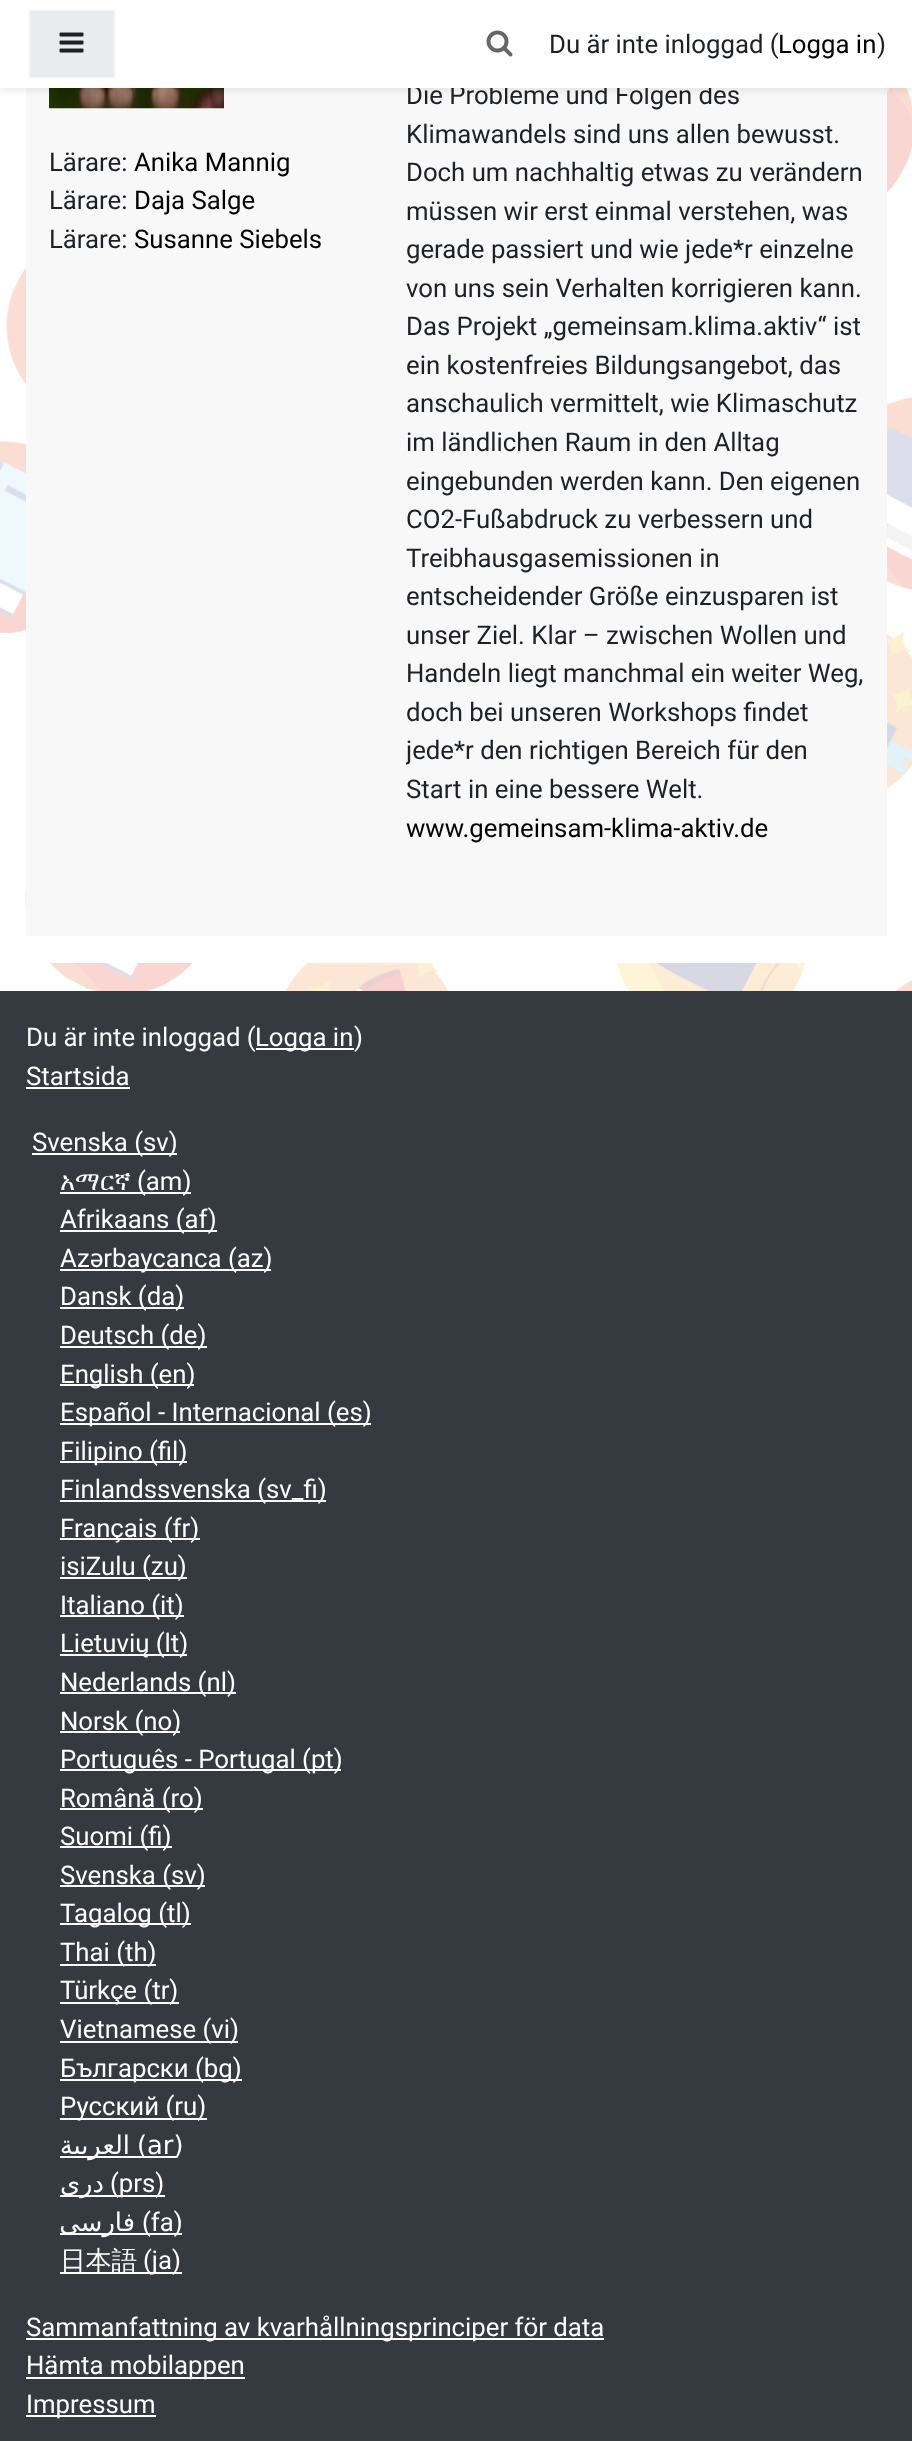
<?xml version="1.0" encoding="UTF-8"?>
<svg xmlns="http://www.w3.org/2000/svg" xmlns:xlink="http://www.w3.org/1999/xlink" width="912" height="2441">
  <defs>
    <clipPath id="clip1"><rect x="406" y="9" width="459" height="905" /></clipPath>
  </defs>
  <rect width="100%" height="100%" fill="#ffffff" />
  <image x="0" y="88" width="912" height="903" xlink:href="image1.png" />
  <rect x="26" y="88" width="861" height="848" fill="#f8f8f8" />
  <image x="49" y="88" width="175" height="21" xlink:href="image4.png" />
  <rect y="4" width="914" height="87" fill="#000000" fill-opacity="0.08" filter="blur(3.5px)" />
  <rect x="32" y="936" width="776" height="27" fill="#ffffff" />
  <rect y="991" width="912" height="1450" fill="#343a40" />
  <rect x="256" y="1048" width="98" height="2" fill="#ffffff" />
  <rect x="26" y="1087" width="104" height="2" fill="#ffffff" />
  <rect x="32" y="1153" width="145" height="2" fill="#ffffff" />
  <rect x="60" y="1192" width="131" height="2" fill="#ffffff" />
  <rect x="60" y="1230" width="157" height="2" fill="#ffffff" />
  <rect x="60" y="1269" width="211" height="2" fill="#ffffff" />
  <rect x="60" y="1307" width="124" height="2" fill="#ffffff" />
  <rect x="60" y="1346" width="147" height="2" fill="#ffffff" />
  <rect x="60" y="1384" width="134" height="2" fill="#ffffff" />
  <rect x="60" y="1423" width="311" height="2" fill="#ffffff" />
  <rect x="60" y="1461" width="127" height="2" fill="#ffffff" />
  <rect x="60" y="1500" width="266" height="2" fill="#ffffff" />
  <rect x="60" y="1538" width="140" height="2" fill="#ffffff" />
  <rect x="60" y="1577" width="127" height="2" fill="#ffffff" />
  <rect x="60" y="1615" width="124" height="2" fill="#ffffff" />
  <rect x="60" y="1654" width="127" height="2" fill="#ffffff" />
  <rect x="60" y="1692" width="176" height="2" fill="#ffffff" />
  <rect x="60" y="1731" width="120" height="2" fill="#ffffff" />
  <rect x="60" y="1769" width="281" height="2" fill="#ffffff" />
  <rect x="60" y="1808" width="143" height="2" fill="#ffffff" />
  <rect x="60" y="1846" width="112" height="2" fill="#ffffff" />
  <rect x="60" y="1885" width="145" height="2" fill="#ffffff" />
  <rect x="60" y="1923" width="131" height="2" fill="#ffffff" />
  <rect x="60" y="1964" width="96" height="2" fill="#ffffff" />
  <rect x="60" y="2002" width="119" height="2" fill="#ffffff" />
  <rect x="60" y="2041" width="178" height="2" fill="#ffffff" />
  <rect x="60" y="2079" width="182" height="2" fill="#ffffff" />
  <rect x="60" y="2118" width="147" height="2" fill="#ffffff" />
  <rect x="60" y="2156" width="117" height="2" fill="#ffffff" />
  <rect x="60" y="2195" width="105" height="2" fill="#ffffff" />
  <rect x="60" y="2233" width="122" height="2" fill="#ffffff" />
  <rect x="60" y="2272" width="122" height="2" fill="#ffffff" />
  <rect x="26" y="2338" width="578" height="2" fill="#ffffff" />
  <rect x="26" y="2377" width="219" height="2" fill="#ffffff" />
  <rect x="26" y="2415" width="130" height="2" fill="#ffffff" />
  <text x="406" y="104" style="font-family: Roboto; font-size: 25.75px; fill: #1d2125">Die Probleme und Folgen des</text>
  <rect width="912" height="88" fill="#ffffff" />
  <text x="877" y="53" style="font-family: Roboto; font-size: 25.75px; fill: #1d2125">)</text>
  <text x="778" y="53" style="font-family: Roboto; font-size: 25.75px; fill: #000000">Logga in</text>
  <text x="549" y="53" style="font-family: Roboto; font-size: 25.75px; fill: #1d2125">Du är inte inloggad (</text>
  <image x="486" y="30" width="27" height="27" xlink:href="image3.png" />
  <rect x="29" y="10" width="86" height="68" fill="#e9ecef" stroke="#f8f9fa" stroke-width="2" />
  <image x="59" y="32" width="25" height="21" xlink:href="image2.png" />
  <text x="406" y="143" style="font-family: Roboto; font-size: 25.75px; fill: #1d2125">Klimawandels sind uns allen bewusst.</text>
  <text x="406" y="181" style="font-family: Roboto; font-size: 25.75px; fill: #1d2125">Doch um nachhaltig etwas zu verändern</text>
  <text x="406" y="220" style="font-family: Roboto; font-size: 25.75px; fill: #1d2125">müssen wir erst einmal verstehen, was</text>
  <text x="406" y="258" style="font-family: Roboto; font-size: 25.75px; fill: #1d2125">gerade passiert und wie jede*r einzelne</text>
  <text x="406" y="297" style="font-family: Roboto; font-size: 25.75px; fill: #1d2125">von uns sein Verhalten korrigieren kann.</text>
  <text x="406" y="335" style="font-family: Roboto; font-size: 25.75px; fill: #1d2125">Das Projekt „gemeinsam.klima.aktiv“ ist</text>
  <text x="406" y="374" style="font-family: Roboto; font-size: 25.75px; fill: #1d2125">ein kostenfreies Bildungsangebot, das</text>
  <text x="406" y="412" style="font-family: Roboto; font-size: 25.75px; fill: #1d2125">anschaulich vermittelt, wie Klimaschutz</text>
  <text x="406" y="451" style="font-family: Roboto; font-size: 25.75px; fill: #1d2125">im ländlichen Raum in den Alltag</text>
  <text x="406" y="490" style="font-family: Roboto; font-size: 25.75px; fill: #1d2125">eingebunden werden kann. Den eigenen</text>
  <text x="406" y="528" style="font-family: Roboto; font-size: 25.75px; fill: #1d2125">CO2-Fußabdruck zu verbessern und</text>
  <text x="406" y="567" style="font-family: Roboto; font-size: 25.75px; fill: #1d2125">Treibhausgasemissionen in</text>
  <text x="406" y="605" style="font-family: Roboto; font-size: 25.75px; fill: #1d2125">entscheidender Größe einzusparen ist</text>
  <text x="406" y="644" style="font-family: Roboto; font-size: 25.75px; fill: #1d2125">unser Ziel. Klar – zwischen Wollen und</text>
  <text x="406" y="682" style="font-family: Roboto; font-size: 25.75px; fill: #1d2125">Handeln liegt manchmal ein weiter Weg,</text>
  <text x="406" y="721" style="font-family: Roboto; font-size: 25.75px; fill: #1d2125">doch bei unseren Workshops findet</text>
  <g clip-path="url(#clip1)">
    <text x="406" y="759" style="font-family: Roboto; font-size: 25.75px; fill: #1d2125">jede*r den richtigen Bereich für den</text>
  </g>
  <text x="406" y="798" style="font-family: Roboto; font-size: 25.75px; fill: #1d2125">Start in eine bessere Welt.</text>
  <text x="406" y="837" style="font-family: Roboto; font-size: 25.75px; fill: #000000">www.gemeinsam-klima-aktiv.de</text>
  <text x="49" y="171" style="font-family: Roboto; font-size: 25.75px; fill: #1d2125">Lärare:</text>
  <text x="134" y="171" style="font-family: Roboto; font-size: 25.75px; fill: #000000">Anika Mannig</text>
  <text x="49" y="209" style="font-family: Roboto; font-size: 25.75px; fill: #1d2125">Lärare:</text>
  <text x="134" y="209" style="font-family: Roboto; font-size: 25.75px; fill: #000000">Daja Salge</text>
  <text x="49" y="248" style="font-family: Roboto; font-size: 25.75px; fill: #1d2125">Lärare:</text>
  <text x="134" y="248" style="font-family: Roboto; font-size: 25.75px; fill: #000000">Susanne Siebels</text>
  <text x="26" y="1046" style="font-family: Roboto; font-size: 25.75px; fill: #f8f9fa">Du är inte inloggad (</text>
  <text x="255" y="1046" style="font-family: Roboto; font-size: 25.75px; fill: #ffffff">Logga in</text>
  <text x="354" y="1046" style="font-family: Roboto; font-size: 25.75px; fill: #f8f9fa">)</text>
  <text x="26" y="1085" style="font-family: Roboto; font-size: 25.75px; fill: #ffffff">Startsida</text>
  <text x="32" y="1151" style="font-family: Roboto; font-size: 25.75px; fill: #ffffff">Svenska (sv)</text>
  <text x="60" y="1190" style="font-family: FreeSerif; font-size: 25.75px; fill: #ffffff">አማርኛ </text>
  <text x="137" y="1190" style="font-family: Roboto; font-size: 25.75px; fill: #ffffff">(am)</text>
  <text x="60" y="1228" style="font-family: Roboto; font-size: 25.75px; fill: #ffffff">Afrikaans (af)</text>
  <text x="60" y="1267" style="font-family: Roboto; font-size: 25.75px; fill: #ffffff">Azərbaycanca (az)</text>
  <text x="60" y="1305" style="font-family: Roboto; font-size: 25.75px; fill: #ffffff">Dansk (da)</text>
  <text x="60" y="1344" style="font-family: Roboto; font-size: 25.75px; fill: #ffffff">Deutsch (de)</text>
  <text x="60" y="1383" style="font-family: Roboto; font-size: 25.75px; fill: #ffffff">English (en)</text>
  <text x="60" y="1421" style="font-family: Roboto; font-size: 25.75px; fill: #ffffff">Español - Internacional (es)</text>
  <text x="60" y="1460" style="font-family: Roboto; font-size: 25.75px; fill: #ffffff">Filipino (fil)</text>
  <text x="60" y="1498" style="font-family: Roboto; font-size: 25.75px; fill: #ffffff">Finlandssvenska (sv_fi)</text>
  <text x="60" y="1537" style="font-family: Roboto; font-size: 25.75px; fill: #ffffff">Français (fr)</text>
  <text x="60" y="1575" style="font-family: Roboto; font-size: 25.75px; fill: #ffffff">isiZulu (zu)</text>
  <text x="60" y="1614" style="font-family: Roboto; font-size: 25.75px; fill: #ffffff">Italiano (it)</text>
  <text x="60" y="1652" style="font-family: Roboto; font-size: 25.75px; fill: #ffffff">Lietuvių (lt)</text>
  <text x="60" y="1691" style="font-family: Roboto; font-size: 25.75px; fill: #ffffff">Nederlands (nl)</text>
  <text x="60" y="1730" style="font-family: Roboto; font-size: 25.75px; fill: #ffffff">Norsk (no)</text>
  <text x="60" y="1768" style="font-family: Roboto; font-size: 25.75px; fill: #ffffff">Português - Portugal (pt)</text>
  <text x="60" y="1807" style="font-family: Roboto; font-size: 25.75px; fill: #ffffff">Română (ro)</text>
  <text x="60" y="1845" style="font-family: Roboto; font-size: 25.75px; fill: #ffffff">Suomi (fi)</text>
  <text x="60" y="1884" style="font-family: Roboto; font-size: 25.75px; fill: #ffffff">Svenska (sv)</text>
  <text x="60" y="1922" style="font-family: Roboto; font-size: 25.75px; fill: #ffffff">Tagalog (tl)</text>
  <text x="60" y="1961" style="font-family: Roboto; font-size: 25.75px; fill: #ffffff">Thai (th)</text>
  <text x="60" y="1999" style="font-family: Roboto; font-size: 25.75px; fill: #ffffff">Türkçe (tr)</text>
  <text x="60" y="2038" style="font-family: Roboto; font-size: 25.75px; fill: #ffffff">Vietnamese (vi)</text>
  <text x="60" y="2077" style="font-family: Roboto; font-size: 25.75px; fill: #ffffff">Български (bg)</text>
  <text x="60" y="2115" style="font-family: Roboto; font-size: 25.75px; fill: #ffffff">Русский (ru)</text>
  <text x="130" y="2154" style="font-family: DejaVu Sans; font-size: 25.75px; direction: rtl; fill: #ffffff">العربية</text>
  <text x="137" y="2154" style="font-family: DejaVu Sans; font-size: 25.75px; fill: #ffffff">(ar)</text>
  <text x="104" y="2192" style="font-family: DejaVu Sans; font-size: 25.75px; direction: rtl; fill: #ffffff">دری</text>
  <text x="110" y="2192" style="font-family: Roboto; font-size: 25.75px; fill: #ffffff">(prs)</text>
  <text x="135" y="2231" style="font-family: DejaVu Sans; font-size: 25.75px; direction: rtl; fill: #ffffff">فارسی</text>
  <text x="142" y="2231" style="font-family: Roboto; font-size: 25.75px; fill: #ffffff">(fa)</text>
  <text x="60" y="2269" style="font-family: WenQuanYi Zen Hei; font-size: 25.75px; font-weight: 500; fill: #ffffff">日本語</text>
  <text x="143" y="2269" style="font-family: Roboto; font-size: 25.75px; fill: #ffffff">(ja)</text>
  <text x="26" y="2336" style="font-family: Roboto; font-size: 25.75px; fill: #ffffff">Sammanfattning av kvarhållningsprinciper för data</text>
  <text x="26" y="2374" style="font-family: Roboto; font-size: 25.75px; fill: #ffffff">Hämta mobilappen</text>
  <text x="26" y="2413" style="font-family: Roboto; font-size: 25.75px; fill: #ffffff">Impressum</text>
</svg>
